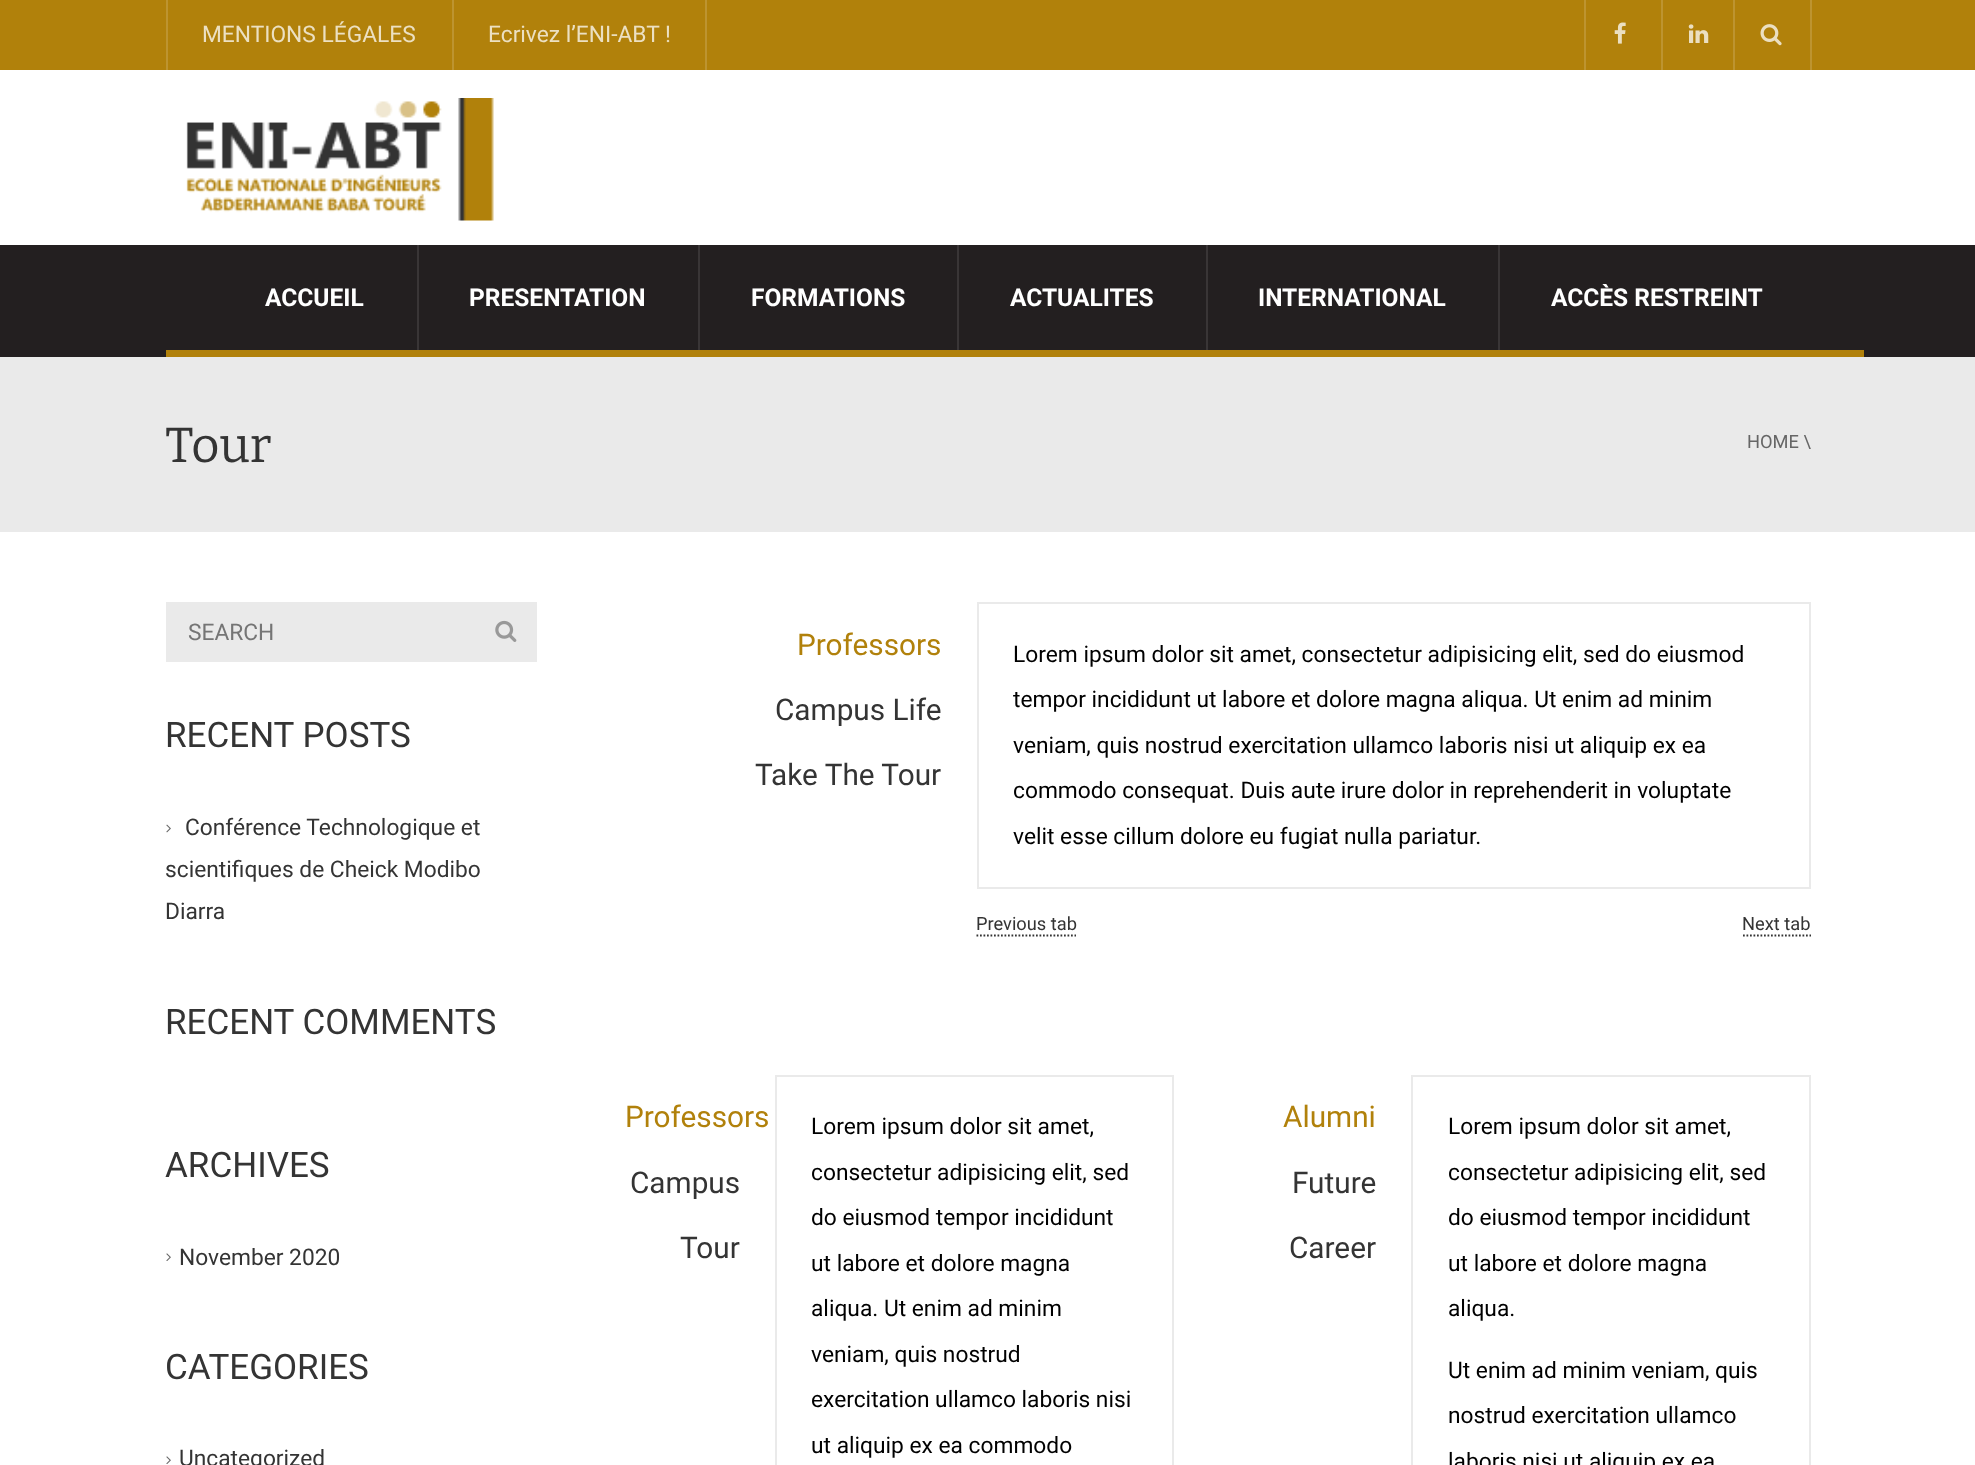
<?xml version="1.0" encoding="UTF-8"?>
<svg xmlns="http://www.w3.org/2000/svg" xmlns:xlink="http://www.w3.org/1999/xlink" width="1975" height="1465">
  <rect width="100%" height="100%" fill="#ffffff" />
  <rect width="1975" height="70" fill="#b1810b" />
  <rect x="166" width="2" height="70" fill="#bd9430" />
  <rect x="705" width="2" height="70" fill="#bd9430" />
  <rect x="452" width="2" height="70" fill="#bd9430" />
  <rect x="1584" width="2" height="70" fill="#bd9430" />
  <image x="1614" y="22" width="12" height="22" xlink:href="image1.png" />
  <rect x="1661" width="2" height="70" fill="#bd9430" />
  <image x="1688" y="24" width="21" height="19" xlink:href="image2.png" />
  <rect x="1810" width="2" height="70" fill="#bd9430" />
  <rect x="1733" width="2" height="70" fill="#bd9430" />
  <image x="1760" y="24" width="22" height="22" xlink:href="image3.png" />
  <image x="186" y="98" width="308" height="123" xlink:href="image4.png" />
  <rect y="245" width="1975" height="112" fill="#231f20" />
  <rect x="166" y="350" width="1698" height="7" fill="#b1810b" />
  <rect x="417" y="245" width="2" height="105" fill="#393536" />
  <rect x="698" y="245" width="2" height="105" fill="#393536" />
  <rect x="957" y="245" width="2" height="105" fill="#393536" />
  <rect x="1206" y="245" width="2" height="105" fill="#393536" />
  <rect x="1498" y="245" width="2" height="105" fill="#393536" />
  <rect y="357" width="1975" height="175" fill="#eaeaea" />
  <rect x="166" y="602" width="371" height="60" fill="#eaeaea" />
  <image x="495" y="620" width="22" height="22" xlink:href="image5.png" />
  <image x="166" y="824" width="5" height="9" xlink:href="image6.png" />
  <image x="166" y="1253" width="5" height="8" xlink:href="image7.png" />
  <image x="166" y="1456" width="5" height="8" xlink:href="image7.png" />
  <rect x="978" y="603" width="832" height="285" fill="none" stroke="#eaeaea" stroke-width="2" />
  <path d="M 976.5 935.5 h 99.5" fill="none" stroke="#343434" stroke-width="1.8" stroke-dasharray="1.75 1.75" />
  <path d="M 1743 935.5 h 68" fill="none" stroke="#343434" stroke-width="1.8" stroke-dasharray="1.75 1.75" />
  <rect x="776" y="1076" width="397" height="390" fill="none" stroke="#eaeaea" stroke-width="2" />
  <rect x="1412" y="1076" width="398" height="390" fill="none" stroke="#eaeaea" stroke-width="2" />
  <text x="202" y="42" style="font-family: Roboto; font-size: 22.75px; fill: #ece0c2">MENTIONS LÉGALES</text>
  <text x="488" y="42" style="font-family: Roboto; font-size: 22.75px; fill: #ece0c2">Ecrivez l’ENI-ABT !</text>
  <text x="265" y="306" style="font-family: Roboto; font-size: 24.5px; font-weight: bold; fill: #ffffff">ACCUEIL</text>
  <text x="469" y="306" style="font-family: Roboto; font-size: 24.5px; font-weight: bold; fill: #ffffff">PRESENTATION</text>
  <text x="751" y="306" style="font-family: Roboto; font-size: 24.5px; font-weight: bold; fill: #ffffff">FORMATIONS</text>
  <text x="1010" y="306" style="font-family: Roboto; font-size: 24.5px; font-weight: bold; fill: #ffffff">ACTUALITES</text>
  <text x="1258" y="306" style="font-family: Roboto; font-size: 24.5px; font-weight: bold; fill: #ffffff">INTERNATIONAL</text>
  <text x="1551" y="306" style="font-family: Roboto; font-size: 24.5px; font-weight: bold; fill: #ffffff">ACCÈS RESTREINT</text>
  <text x="165" y="462" style="font-family: Bitter; font-size: 49px; font-weight: 100; fill: #343434">Tour</text>
  <text x="1747" y="448" style="font-family: Roboto; font-size: 18.25px; fill: #666666">HOME \</text>
  <text x="188" y="640" style="font-family: Roboto; font-size: 22.75px; fill: #757575">SEARCH</text>
  <text x="165" y="747" style="font-family: Roboto; font-size: 35px; fill: #343434">RECENT POSTS</text>
  <text x="185" y="835" style="font-family: Roboto; font-size: 22.75px; fill: #343434">Conférence Technologique et</text>
  <text x="165" y="877" style="font-family: Roboto; font-size: 22.75px; fill: #343434">scientifiques de Cheick Modibo</text>
  <text x="165" y="919" style="font-family: Roboto; font-size: 22.75px; fill: #343434">Diarra</text>
  <text x="165" y="1034" style="font-family: Roboto; font-size: 35px; fill: #343434">RECENT COMMENTS</text>
  <text x="165" y="1177" style="font-family: Roboto; font-size: 35px; fill: #343434">ARCHIVES</text>
  <text x="179" y="1265" style="font-family: Roboto; font-size: 22.75px; fill: #343434">November 2020</text>
  <text x="165" y="1379" style="font-family: Roboto; font-size: 35px; fill: #343434">CATEGORIES</text>
  <text x="179" y="1466" style="font-family: Roboto; font-size: 22.75px; fill: #343434">Uncategorized</text>
  <text x="797" y="655" style="font-family: Roboto; font-size: 29.75px; fill: #b1810b">Professors</text>
  <text x="775" y="720" style="font-family: Roboto; font-size: 29.75px; fill: #343434">Campus Life</text>
  <text x="755" y="785" style="font-family: Roboto; font-size: 29.75px; fill: #343434">Take The Tour</text>
  <text x="1013" y="662" style="font-family: Roboto; font-size: 22.75px; fill: #000000">Lorem ipsum dolor sit amet, consectetur adipisicing elit, sed do eiusmod</text>
  <text x="1013" y="707" style="font-family: Roboto; font-size: 22.75px; fill: #000000">tempor incididunt ut labore et dolore magna aliqua. Ut enim ad minim</text>
  <text x="1013" y="753" style="font-family: Roboto; font-size: 22.75px; fill: #000000">veniam, quis nostrud exercitation ullamco laboris nisi ut aliquip ex ea</text>
  <text x="1013" y="798" style="font-family: Roboto; font-size: 22.75px; fill: #000000">commodo consequat. Duis aute irure dolor in reprehenderit in voluptate</text>
  <text x="1013" y="844" style="font-family: Roboto; font-size: 22.75px; fill: #000000">velit esse cillum dolore eu fugiat nulla pariatur.</text>
  <text x="976" y="930" style="font-family: Roboto; font-size: 18.25px; fill: #343434">Previous tab</text>
  <text x="1742" y="930" style="font-family: Roboto; font-size: 18.25px; fill: #343434">Next tab</text>
  <text x="625" y="1127" style="font-family: Roboto; font-size: 29.75px; fill: #b1810b">Professors</text>
  <text x="630" y="1193" style="font-family: Roboto; font-size: 29.75px; fill: #343434">Campus</text>
  <text x="680" y="1258" style="font-family: Roboto; font-size: 29.75px; fill: #343434">Tour</text>
  <text x="811" y="1134" style="font-family: Roboto; font-size: 22.75px; fill: #000000">Lorem ipsum dolor sit amet,</text>
  <text x="811" y="1180" style="font-family: Roboto; font-size: 22.75px; fill: #000000">consectetur adipisicing elit, sed</text>
  <text x="811" y="1225" style="font-family: Roboto; font-size: 22.75px; fill: #000000">do eiusmod tempor incididunt</text>
  <text x="811" y="1271" style="font-family: Roboto; font-size: 22.75px; fill: #000000">ut labore et dolore magna</text>
  <text x="811" y="1316" style="font-family: Roboto; font-size: 22.75px; fill: #000000">aliqua. Ut enim ad minim</text>
  <text x="811" y="1362" style="font-family: Roboto; font-size: 22.75px; fill: #000000">veniam, quis nostrud</text>
  <text x="811" y="1407" style="font-family: Roboto; font-size: 22.75px; fill: #000000">exercitation ullamco laboris nisi</text>
  <text x="811" y="1453" style="font-family: Roboto; font-size: 22.75px; fill: #000000">ut aliquip ex ea commodo</text>
  <text x="1283" y="1127" style="font-family: Roboto; font-size: 29.75px; fill: #b1810b">Alumni</text>
  <text x="1292" y="1193" style="font-family: Roboto; font-size: 29.75px; fill: #343434">Future</text>
  <text x="1289" y="1258" style="font-family: Roboto; font-size: 29.75px; fill: #343434">Career</text>
  <text x="1448" y="1134" style="font-family: Roboto; font-size: 22.75px; fill: #000000">Lorem ipsum dolor sit amet,</text>
  <text x="1448" y="1180" style="font-family: Roboto; font-size: 22.75px; fill: #000000">consectetur adipisicing elit, sed</text>
  <text x="1448" y="1225" style="font-family: Roboto; font-size: 22.75px; fill: #000000">do eiusmod tempor incididunt</text>
  <text x="1448" y="1271" style="font-family: Roboto; font-size: 22.75px; fill: #000000">ut labore et dolore magna</text>
  <text x="1448" y="1316" style="font-family: Roboto; font-size: 22.75px; fill: #000000">aliqua.</text>
  <text x="1448" y="1378" style="font-family: Roboto; font-size: 22.75px; fill: #000000">Ut enim ad minim veniam, quis</text>
  <text x="1448" y="1423" style="font-family: Roboto; font-size: 22.75px; fill: #000000">nostrud exercitation ullamco</text>
  <text x="1448" y="1469" style="font-family: Roboto; font-size: 22.75px; fill: #000000">laboris nisi ut aliquip ex ea</text>
</svg>
